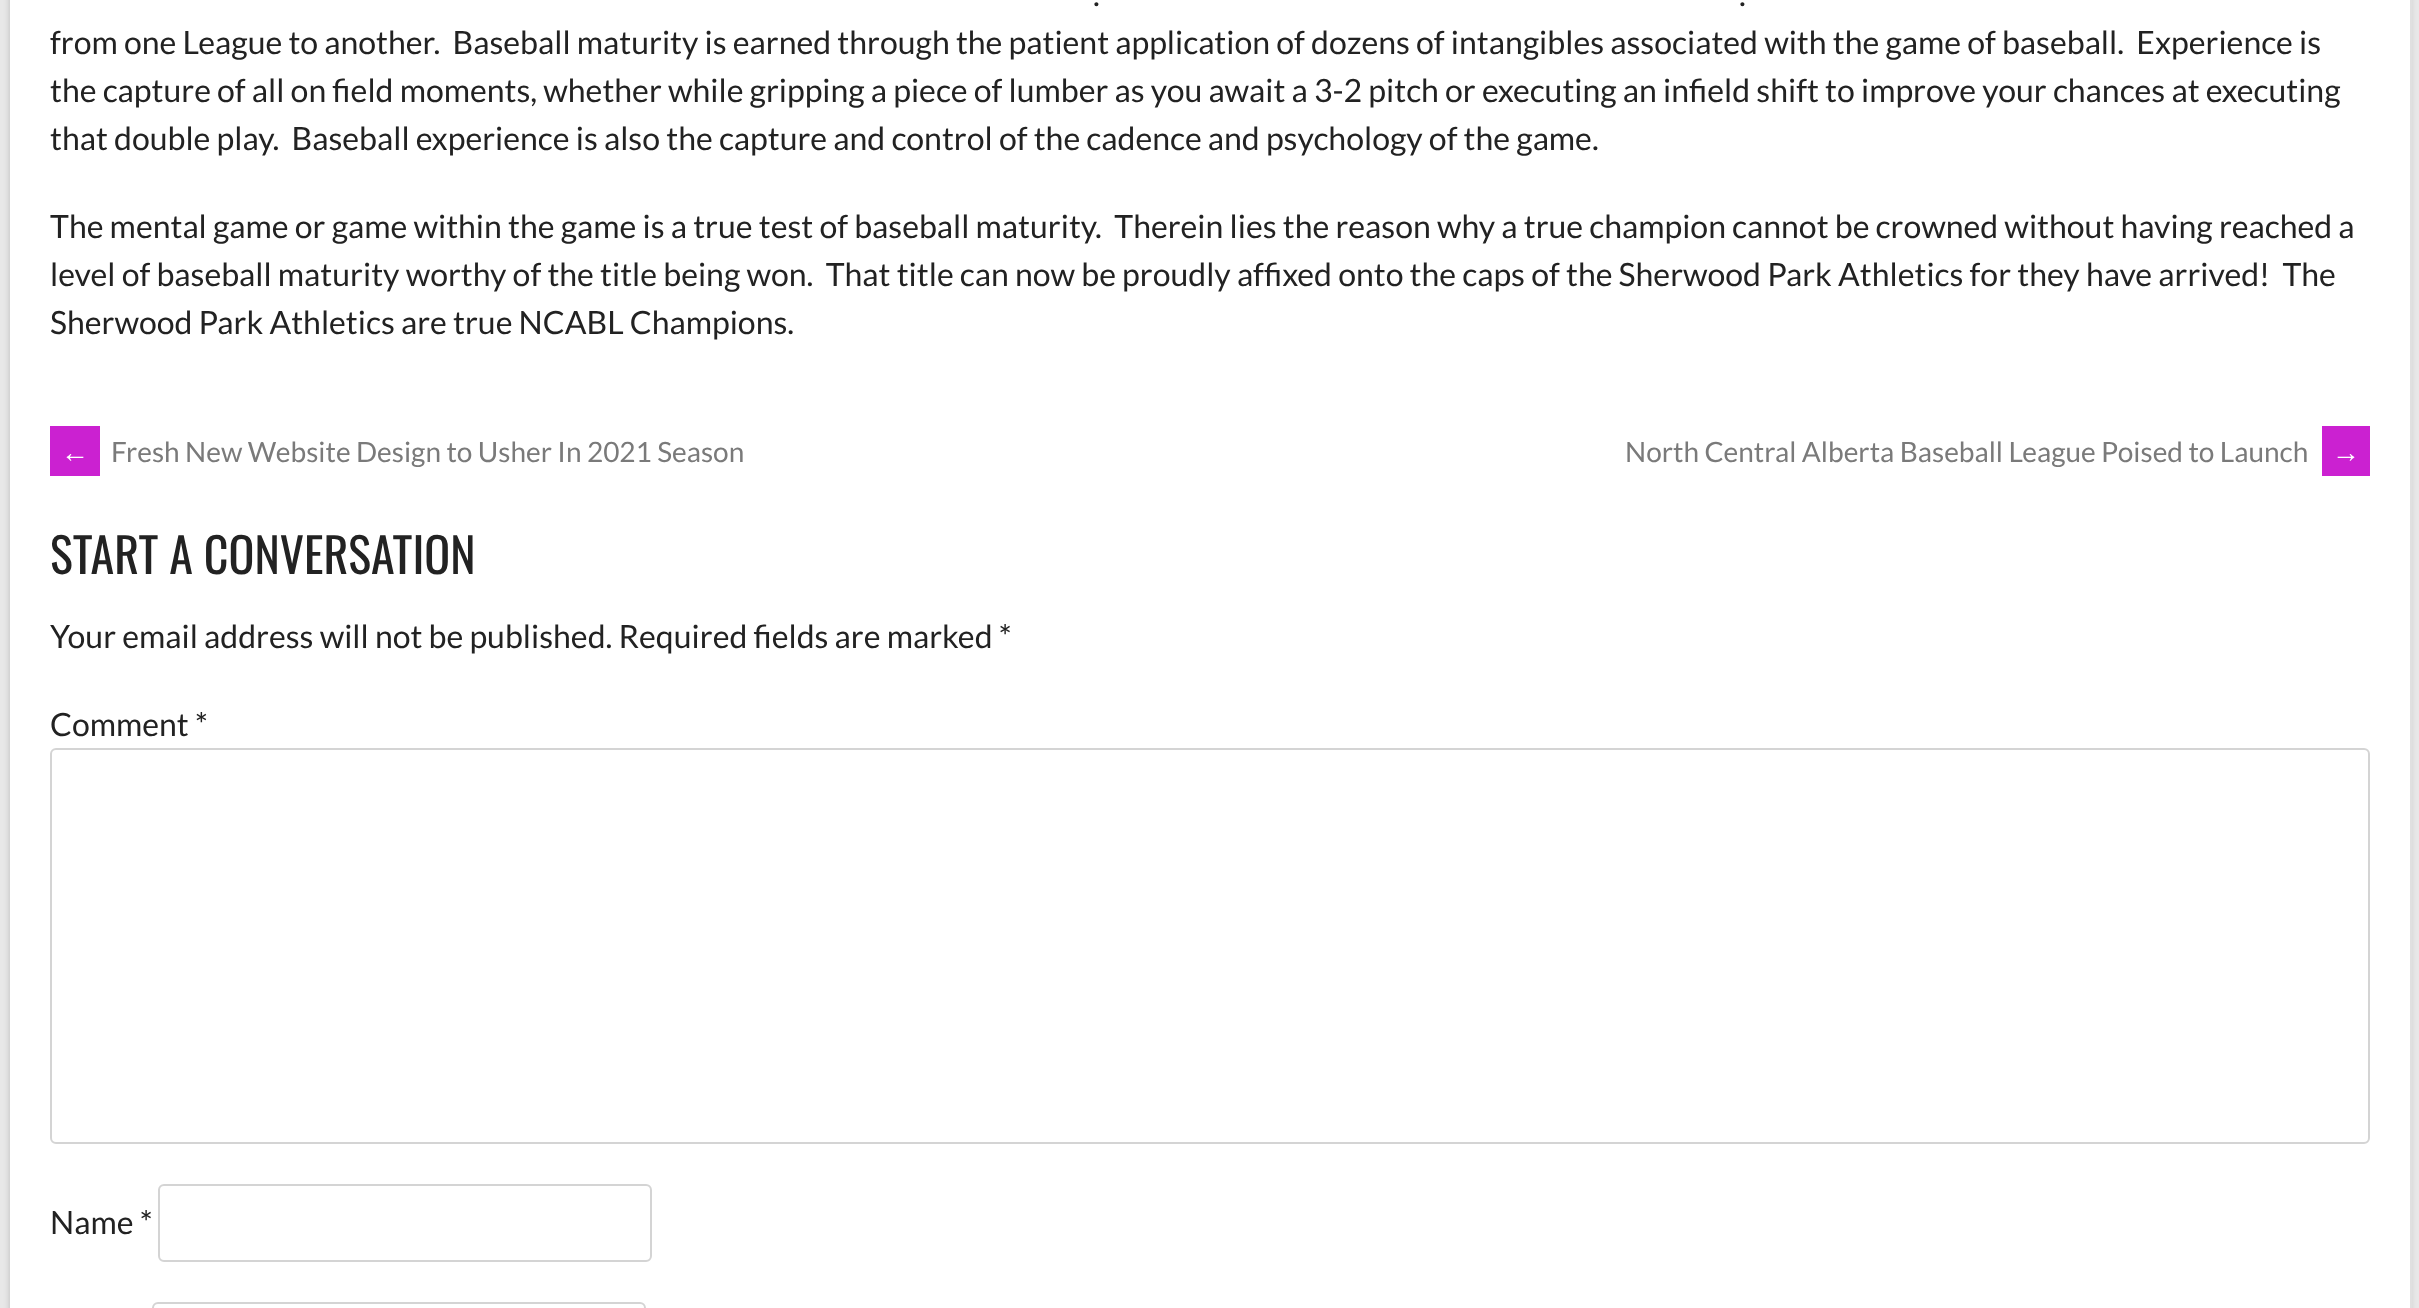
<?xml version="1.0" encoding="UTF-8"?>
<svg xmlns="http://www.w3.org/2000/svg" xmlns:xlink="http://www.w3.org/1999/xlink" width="2419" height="1308">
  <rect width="100%" height="100%" fill="#e8e8e8" />
  <rect x="10" y="-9" width="2400" height="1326" fill="#000000" fill-opacity="0.2" filter="blur(3px)" />
  <rect x="10" width="2400" height="1308" fill="#ffffff" />
  <rect x="2410" width="2" height="1308" fill="#e0e0e0" />
  <rect x="50" y="426" width="50" height="50" fill="#cb21d1" />
  <rect x="2322" y="426" width="48" height="50" fill="#cb21d1" />
  <rect x="51" y="749" width="2318" height="394" rx="5" fill="none" stroke="#d4d4d4" stroke-width="2" />
  <rect x="159" y="1185" width="492" height="76" rx="5" fill="none" stroke="#d4d4d4" stroke-width="2" />
  <rect x="153" y="1303" width="492" height="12" rx="5" fill="none" stroke="#d4d4d4" stroke-width="2" />
  <text x="1093" y="6" style="font-family: Lato; font-size: 32px; fill: #222222">.</text>
  <text x="1739" y="6" style="font-family: Lato; font-size: 32px; fill: #222222">.</text>
  <text x="50" y="54" style="font-family: Lato; font-size: 32px; fill: #222222" xml:space="preserve">from one League to another.  Baseball maturity is earned through the patient application of dozens of intangibles associated with the game of baseball.  Experience is</text>
  <text x="50" y="102" style="font-family: Lato; font-size: 32px; fill: #222222">the capture of all on field moments, whether while gripping a piece of lumber as you await a 3-2 pitch or executing an infield shift to improve your chances at executing</text>
  <text x="50" y="150" style="font-family: Lato; font-size: 32px; fill: #222222" xml:space="preserve">that double play.  Baseball experience is also the capture and control of the cadence and psychology of the game.</text>
  <text x="50" y="238" style="font-family: Lato; font-size: 32px; fill: #222222" xml:space="preserve">The mental game or game within the game is a true test of baseball maturity.  Therein lies the reason why a true champion cannot be crowned without having reached a</text>
  <text x="50" y="286" style="font-family: Lato; font-size: 32px; fill: #222222" xml:space="preserve">level of baseball maturity worthy of the title being won.  That title can now be proudly affixed onto the caps of the Sherwood Park Athletics for they have arrived!  The</text>
  <text x="50" y="334" style="font-family: Lato; font-size: 32px; fill: #222222">Sherwood Park Athletics are true NCABL Champions.</text>
  <text x="61" y="462" style="font-family: Liberation Sans; font-size: 28px; fill: #ffffff">←</text>
  <text x="111" y="462" style="font-family: Lato; font-size: 28px; fill: #7a7a7a">Fresh New Website Design to Usher In 2021 Season</text>
  <text x="1625" y="462" style="font-family: Lato; font-size: 28px; fill: #7a7a7a">North Central Alberta Baseball League Poised to Launch</text>
  <text x="2332" y="462" style="font-family: Liberation Sans; font-size: 28px; fill: #ffffff">→</text>
  <text x="50" y="574" style="font-family: Oswald; font-size: 48px; fill: #222222">START A CONVERSATION</text>
  <text x="50" y="648" style="font-family: Lato; font-size: 32px; fill: #222222">Your email address will not be published. Required fields are marked *</text>
  <text x="50" y="736" style="font-family: Lato; font-size: 32px; fill: #222222">Comment *</text>
  <text x="50" y="1234" style="font-family: Lato; font-size: 32px; fill: #222222">Name *</text>
</svg>
